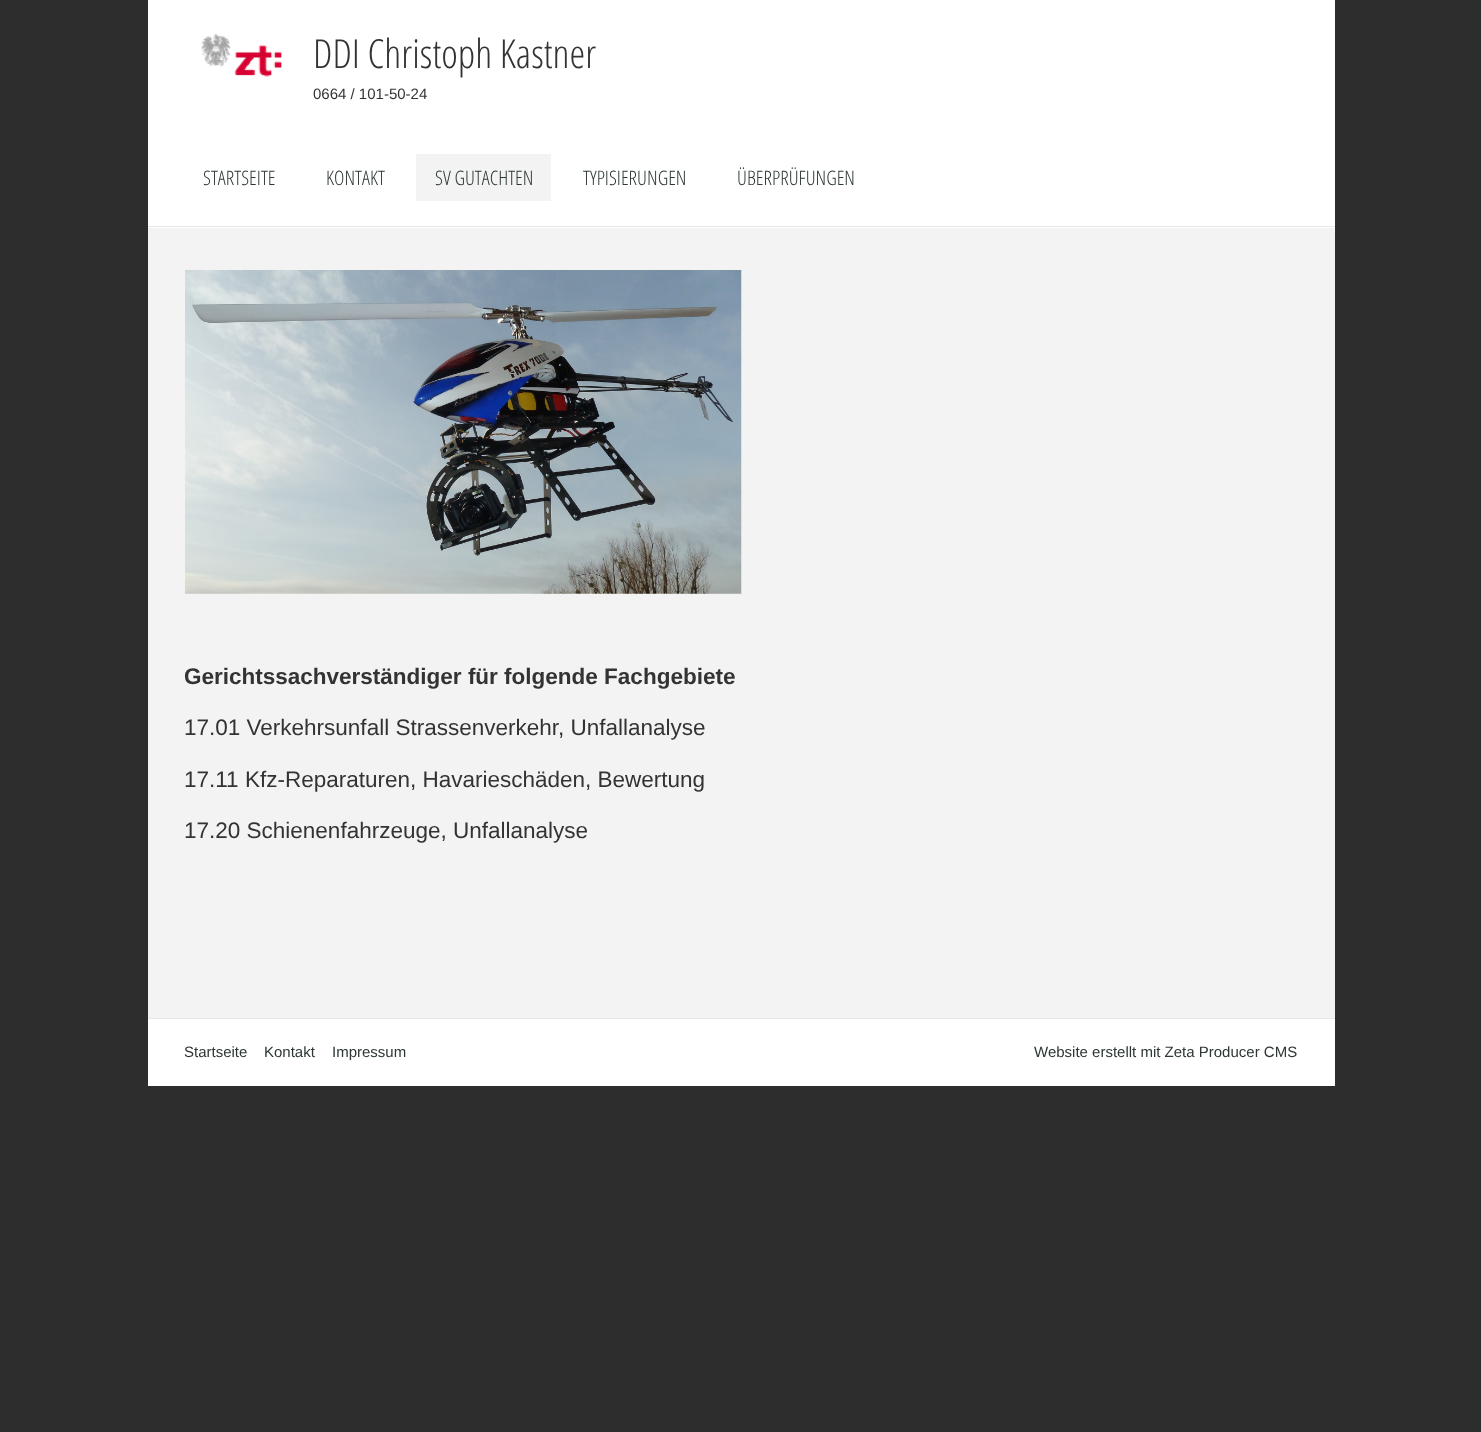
<?xml version="1.0" encoding="UTF-8"?>
<svg xmlns="http://www.w3.org/2000/svg" xmlns:xlink="http://www.w3.org/1999/xlink" width="1481" height="1432">
  <rect width="100%" height="100%" fill="#2d2d2d" />
  <rect x="148" width="1187" height="228" fill="#ffffff" />
  <image x="201" y="33" width="81" height="44" xlink:href="image1.png" />
  <rect x="148" y="226" width="1187" height="1" fill="#e6e6e6" />
  <rect x="416" y="154" width="135" height="47" fill="#f3f3f3" />
  <rect x="148" y="228" width="1187" height="790" fill="#f3f3f3" />
  <rect x="148" y="1018" width="1187" height="1" fill="#e6e6e6" />
  <image x="185" y="270" width="557" height="324" xlink:href="image2.png" />
  <rect x="148" y="1019" width="1187" height="67" fill="#ffffff" />
  <text x="313" y="68" style="font-family: Open Sans Condensed; font-size: 40px; font-weight: 300; fill: #333333">DDI Christoph Kastner</text>
  <text x="313" y="99" style="font-family: Liberation Sans; font-size: 15px; fill: #333333">0664 / 101-50-24</text>
  <text x="203" y="185" style="font-family: Open Sans Condensed; font-size: 20px; font-weight: 300; fill: #2d3736">STARTSEITE</text>
  <text x="326" y="185" style="font-family: Open Sans Condensed; font-size: 20px; font-weight: 300; fill: #2d3736">KONTAKT</text>
  <text x="435" y="185" style="font-family: Open Sans Condensed; font-size: 20px; font-weight: 300; fill: #2d3736">SV GUTACHTEN</text>
  <text x="583" y="185" style="font-family: Open Sans Condensed; font-size: 20px; font-weight: 300; fill: #2d3736">TYPISIERUNGEN</text>
  <text x="737" y="185" style="font-family: Open Sans Condensed; font-size: 20px; font-weight: 300; fill: #2d3736">ÜBERPRÜFUNGEN</text>
  <text x="184" y="684" style="font-family: Liberation Sans; font-size: 22.5px; font-weight: bold; fill: #333333">Gerichtssachverständiger für folgende Fachgebiete</text>
  <text x="184" y="735" style="font-family: Liberation Sans; font-size: 22.5px; fill: #333333">17.01 Verkehrsunfall Strassenverkehr, Unfallanalyse</text>
  <text x="184" y="787" style="font-family: Liberation Sans; font-size: 22.5px; fill: #333333">17.11 Kfz-Reparaturen, Havarieschäden, Bewertung</text>
  <text x="184" y="838" style="font-family: Liberation Sans; font-size: 22.5px; fill: #333333">17.20 Schienenfahrzeuge, Unfallanalyse</text>
  <text x="184" y="1057" style="font-family: Liberation Sans; font-size: 15px; fill: #2d3736">Startseite</text>
  <text x="264" y="1057" style="font-family: Liberation Sans; font-size: 15px; fill: #2d3736">Kontakt</text>
  <text x="332" y="1057" style="font-family: Liberation Sans; font-size: 15px; fill: #2d3736">Impressum</text>
  <text x="1034" y="1057" style="font-family: Liberation Sans; font-size: 15px; fill: #2d3736">Website erstellt mit Zeta Producer CMS</text>
</svg>
